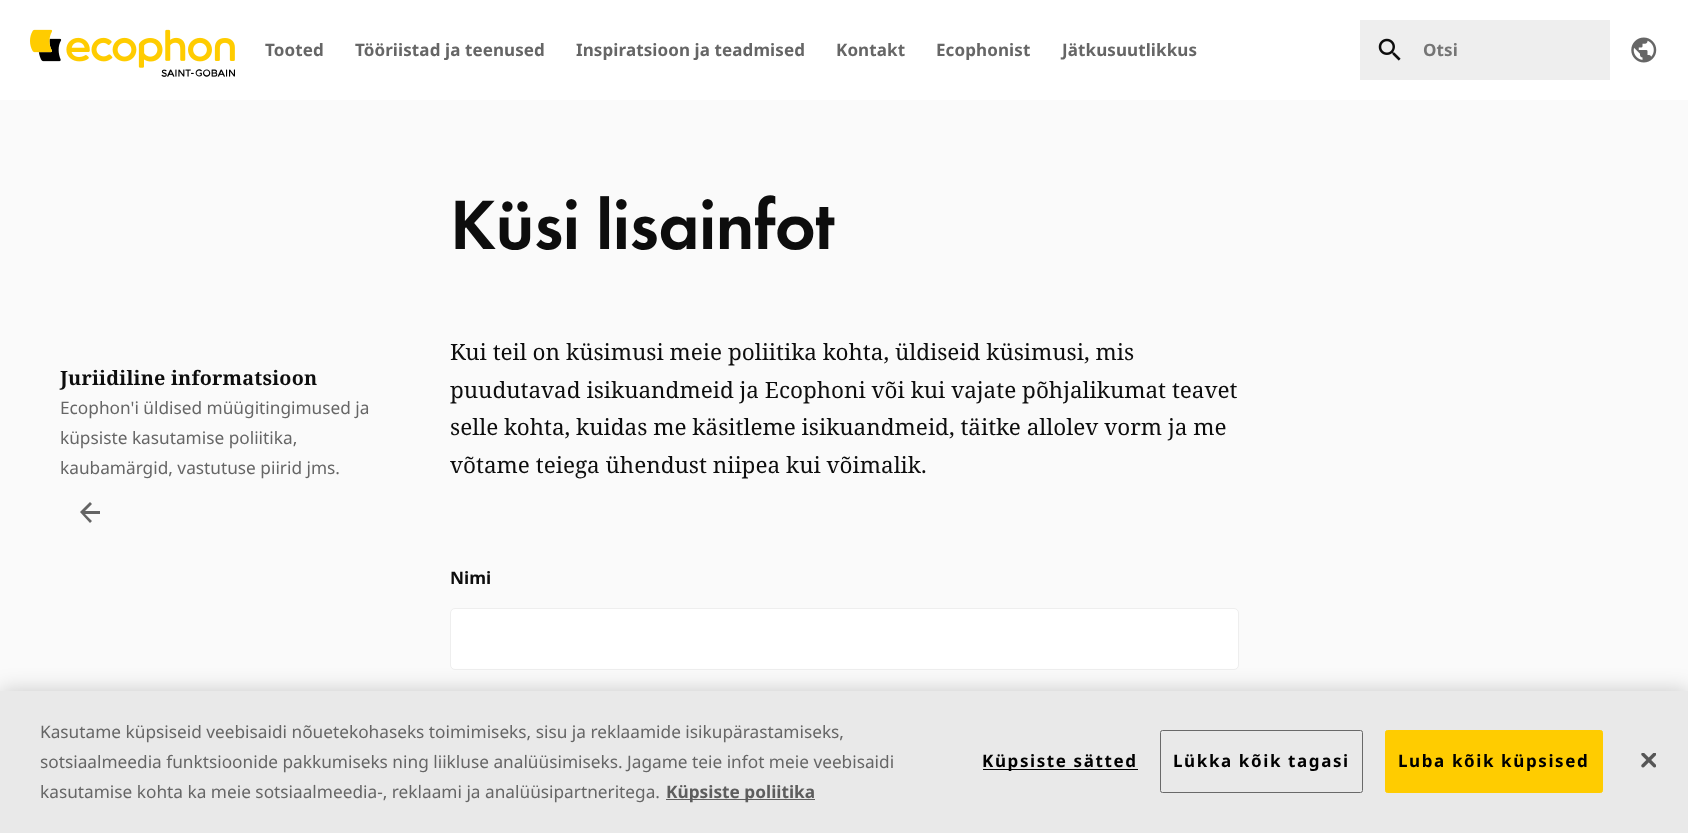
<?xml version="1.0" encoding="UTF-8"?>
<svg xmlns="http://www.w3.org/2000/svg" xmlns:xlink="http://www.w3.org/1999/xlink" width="1688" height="833">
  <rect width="100%" height="100%" fill="#fafafa" />
  <rect width="1688" height="100" fill="#ffffff" />
  <image x="30" y="29" width="205" height="48" xlink:href="image1.png" />
  <rect x="1360" y="20" width="250" height="60" fill="#eeeeee" />
  <image x="1378" y="38" width="23" height="23" xlink:href="image2.png" />
  <image x="1631" y="37" width="26" height="26" xlink:href="image3.png" />
  <path d="M 100 511 v 3 h -15 l 7 7 l -2 2 l -10 -11 l 10 -10 l 2 2 l -7 7 z m 5 17 h 0 z m 30 0 h 0 z m 30 0 h 0 z m 30 0 h 0 z" fill="#646464" />
  <rect x="450.5" y="608.5" width="788" height="61" rx="4.5" fill="#ffffff" stroke="#eeeeee" />
  <rect y="691" width="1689" height="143" fill="#000000" fill-opacity="0.2" filter="blur(11px)" />
  <rect y="691" width="1688" height="142" fill="#e9e9e9" />
  <rect x="666" y="799" width="149" height="1" fill="#5d5d5d" />
  <rect x="983" y="769" width="155" height="1" fill="#000000" />
  <rect x="1160.5" y="730.5" width="202" height="62" rx="2" fill="none" stroke="#696969" />
  <rect x="1385.5" y="730.5" width="217" height="62" rx="2" fill="#ffcc00" stroke="#ffcc00" />
  <image x="1641" y="753" width="15" height="15" xlink:href="image4.png" />
  <text x="265" y="56" style="font-family: Noto Sans; font-size: 17px; font-weight: bold; letter-spacing: 0.1px; fill: #666666">Tooted</text>
  <text x="355" y="56" style="font-family: Noto Sans; font-size: 17px; font-weight: bold; letter-spacing: 0.1px; fill: #666666">Tööriistad ja teenused</text>
  <text x="576" y="56" style="font-family: Noto Sans; font-size: 17px; font-weight: bold; letter-spacing: 0.1px; fill: #666666">Inspiratsioon ja teadmised</text>
  <text x="836" y="56" style="font-family: Noto Sans; font-size: 17px; font-weight: bold; letter-spacing: 0.1px; fill: #666666">Kontakt</text>
  <text x="936" y="56" style="font-family: Noto Sans; font-size: 17px; font-weight: bold; letter-spacing: 0.1px; fill: #666666">Ecophonist</text>
  <text x="1062" y="56" style="font-family: Noto Sans; font-size: 17px; font-weight: bold; letter-spacing: 0.1px; fill: #666666">Jätkusuutlikkus</text>
  <text x="1423" y="56" style="font-family: Noto Sans; font-size: 17px; font-weight: bold; letter-spacing: 0.1px; fill: #757575">Otsi</text>
  <text x="450" y="249" style="font-family: Futura PT; font-size: 72.5px; font-weight: 600; letter-spacing: -0.5px; fill: #0d0d0d">Küsi lisainfot</text>
  <text x="60" y="385" style="font-family: Noto Serif; font-size: 19.75px; font-weight: bold; letter-spacing: 0.2px; fill: #0d0d0d">Juriidiline informatsioon</text>
  <text x="60" y="414" style="font-family: Noto Sans; font-size: 17.25px; fill: #666666">Ecophon'i üldised müügitingimused ja</text>
  <text x="60" y="444" style="font-family: Noto Sans; font-size: 17.25px; fill: #666666">küpsiste kasutamise poliitika,</text>
  <text x="60" y="474" style="font-family: Noto Sans; font-size: 17.25px; fill: #666666">kaubamärgid, vastutuse piirid jms.</text>
  <text x="450" y="360" style="font-family: Noto Serif; font-size: 22.5px; fill: #0d0d0d">Kui teil on küsimusi meie poliitika kohta, üldiseid küsimusi, mis</text>
  <text x="450" y="398" style="font-family: Noto Serif; font-size: 22.5px; fill: #0d0d0d">puudutavad isikuandmeid ja Ecophoni või kui vajate põhjalikumat teavet</text>
  <text x="450" y="435" style="font-family: Noto Serif; font-size: 22.5px; fill: #0d0d0d">selle kohta, kuidas me käsitleme isikuandmeid, täitke allolev vorm ja me</text>
  <text x="450" y="473" style="font-family: Noto Serif; font-size: 22.5px; fill: #0d0d0d">võtame teiega ühendust niipea kui võimalik.</text>
  <text x="450" y="584" style="font-family: Noto Sans; font-size: 17.25px; font-weight: bold; fill: #0d0d0d">Nimi</text>
  <text x="40" y="738" style="font-family: Noto Sans; font-size: 17.25px; fill: #666666">Kasutame küpsiseid veebisaidi nõuetekohaseks toimimiseks, sisu ja reklaamide isikupärastamiseks,</text>
  <text x="40" y="768" style="font-family: Noto Sans; font-size: 17.25px; fill: #666666">sotsiaalmeedia funktsioonide pakkumiseks ning liikluse analüüsimiseks. Jagame teie infot meie veebisaidi</text>
  <text x="40" y="798" style="font-family: Noto Sans; font-size: 17.25px; fill: #666666">kasutamise kohta ka meie sotsiaalmeedia-, reklaami ja analüüsipartneritega.</text>
  <text x="666" y="798" style="font-family: Noto Sans; font-size: 17.25px; font-weight: bold; fill: #5d5d5d">Küpsiste poliitika</text>
  <text x="982" y="767" style="font-family: Noto Sans; font-size: 17px; font-weight: bold; letter-spacing: 1.6px; fill: #000000">Küpsiste sätted</text>
  <text x="1173" y="767" style="font-family: Noto Sans; font-size: 17px; font-weight: bold; letter-spacing: 1.6px; fill: #000000">Lükka kõik tagasi</text>
  <text x="1398" y="767" style="font-family: Noto Sans; font-size: 17px; font-weight: bold; letter-spacing: 1.6px; fill: #000000">Luba kõik küpsised</text>
</svg>
